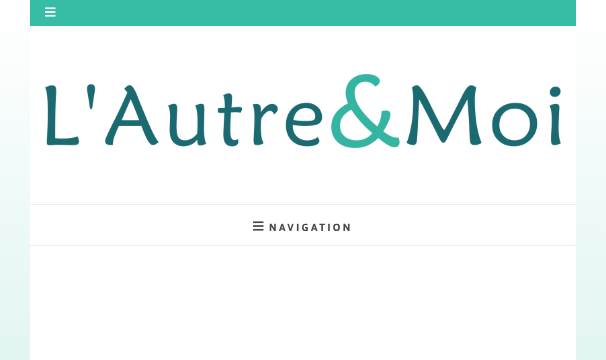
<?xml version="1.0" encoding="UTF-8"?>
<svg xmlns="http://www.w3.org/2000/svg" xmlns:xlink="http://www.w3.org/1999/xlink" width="606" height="360">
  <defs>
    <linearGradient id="g1" gradientUnits="userSpaceOnUse" x1="303" y1="0" x2="303" y2="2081"><stop offset="0" stop-color="#ffffff" /><stop offset="1" stop-color="#57c6b3" /></linearGradient>
  </defs>
  <rect width="100%" height="100%" fill="#ffffff" />
  <rect y="31" width="606" height="329" fill="url(#g1)" />
  <rect x="30" y="31" width="546" height="329" fill="#ffffff" />
  <rect x="30" width="546" height="26" fill="#37bca5" />
  <image x="45" y="7" width="11" height="10" xlink:href="image1.png" />
  <image x="45" y="74" width="516" height="74" xlink:href="image2.png" />
  <rect x="30" y="204" width="546" height="1" fill="#eeeeee" />
  <rect x="30" y="245" width="546" height="1" fill="#eeeeee" />
  <image x="253" y="221" width="11" height="10" xlink:href="image3.png" />
  <text x="269" y="231" style="font-family: Jaldi; font-size: 12px; font-weight: bold; letter-spacing: 2.4px; fill: #4a4747">NAVIGATION</text>
</svg>
